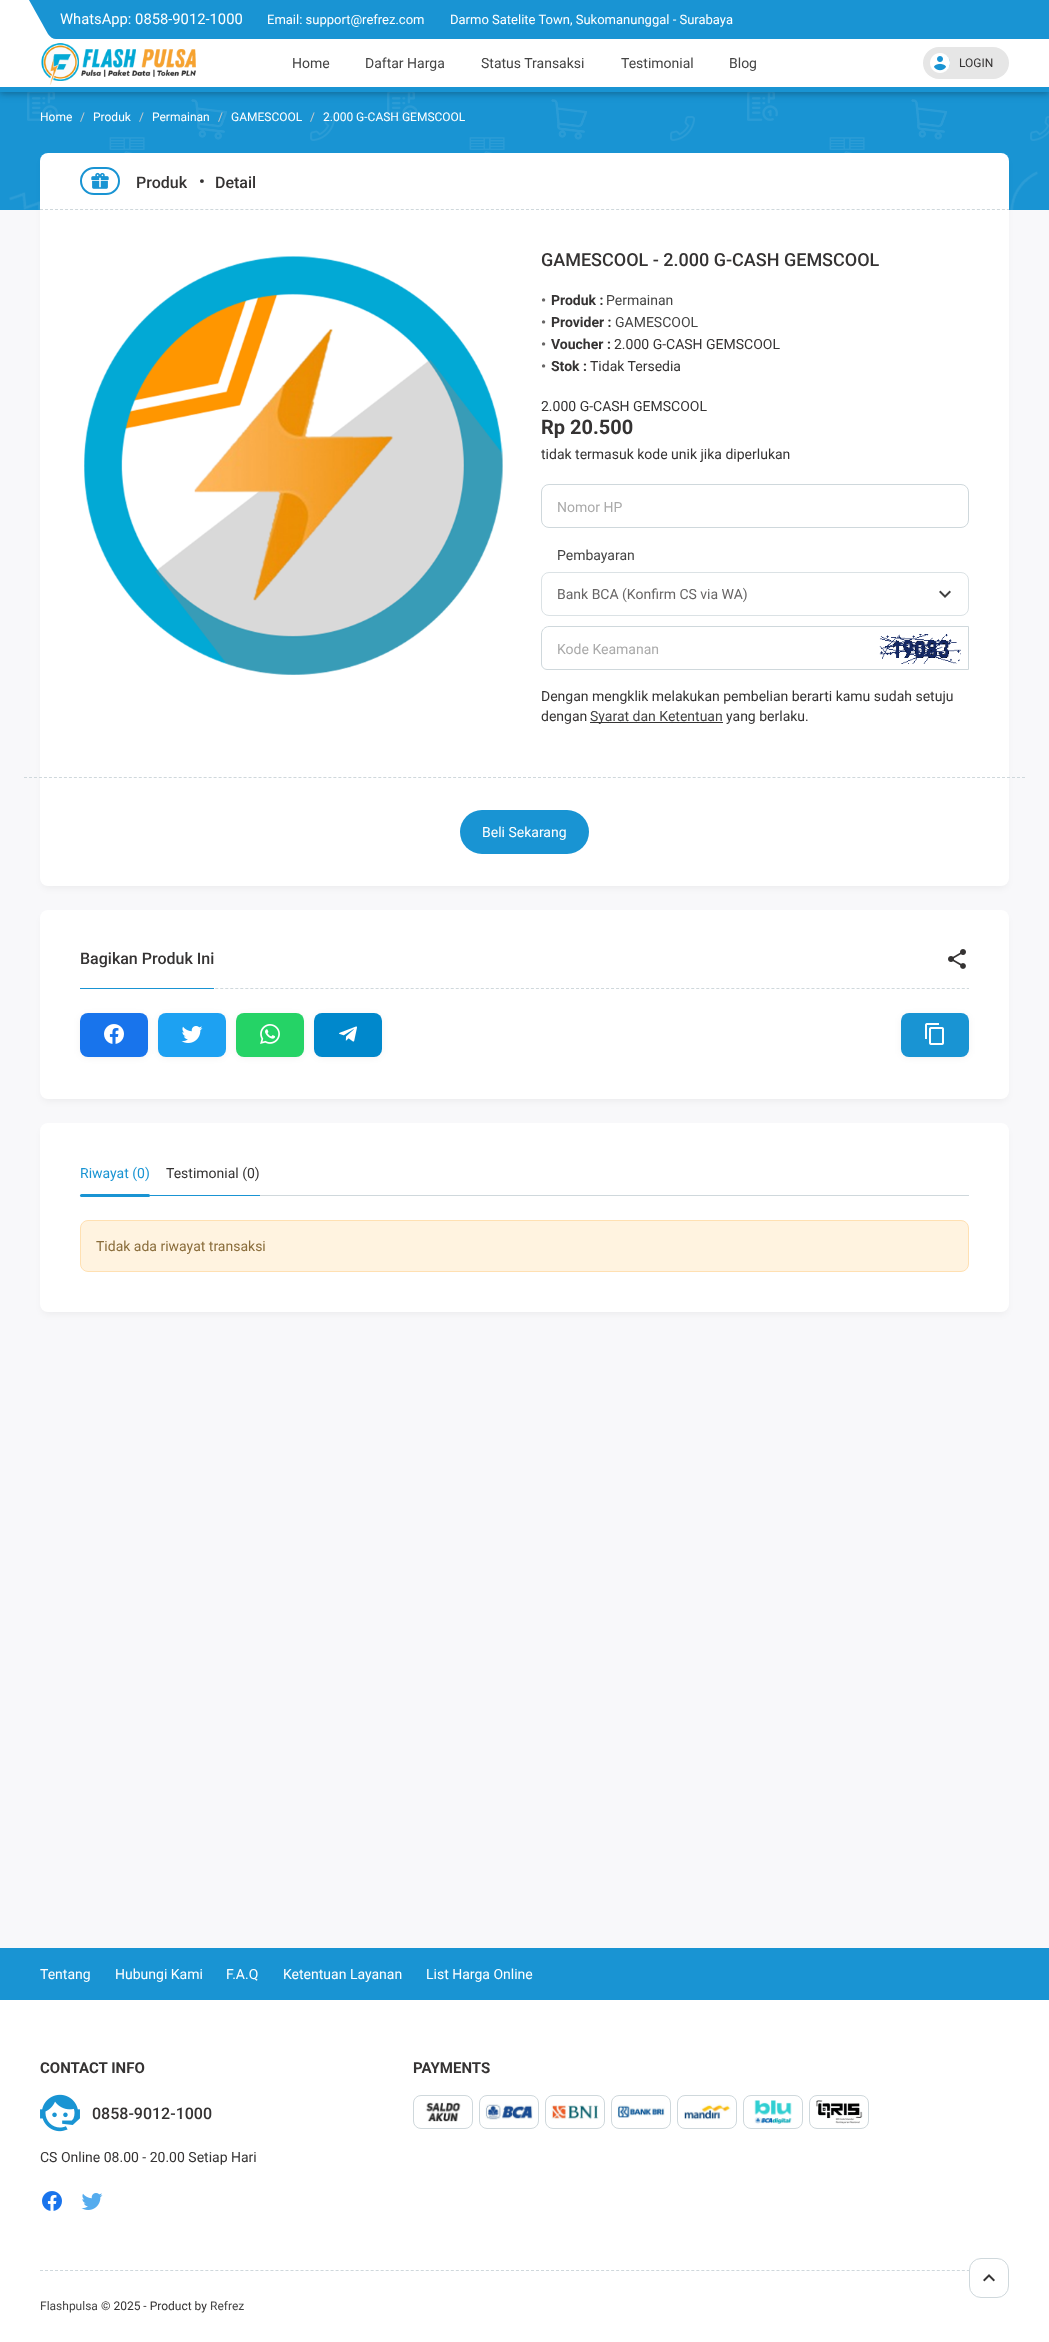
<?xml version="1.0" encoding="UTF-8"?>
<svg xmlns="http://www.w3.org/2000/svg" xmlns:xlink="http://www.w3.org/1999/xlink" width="1049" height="2342">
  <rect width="100%" height="100%" fill="#f8f8fa" />
  <rect y="92" width="1049" height="118" fill="#1994d3" />
  <image x="9" y="92" width="1040" height="118" xlink:href="image3.png" />
  <rect y="2" width="1049" height="92" fill="#000000" fill-opacity="0.12" filter="blur(5px)" />
  <rect y="2" width="1049" height="92" fill="#000000" fill-opacity="0.16" filter="blur(2.5px)" />
  <rect width="1049" height="87" fill="#ffffff" />
  <rect y="87" width="1049" height="5" fill="#1994d3" />
  <path d="M 29 0 h 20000 l 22 39 h -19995 c -3 0 -6 -2 -8 -5 z" fill="#1994d3" />
  <image x="41" y="43" width="155" height="42" xlink:href="image1.png" />
  <rect x="923" y="47" width="86" height="32" rx="16" fill="#e6e6e6" />
  <rect x="931" y="54" width="19" height="18" rx="9" fill="#1994d3" />
  <image x="930" y="53" width="20" height="20" xlink:href="image2.png" />
  <rect x="42" y="159" width="965" height="729" rx="6" fill="#000000" fill-opacity="0.05" filter="blur(3.5px)" />
  <rect x="40" y="153" width="969" height="733" rx="8" fill="#ffffff" />
  <path d="M 40 209.5 h 969" fill="none" stroke="#cfd8dc" stroke-dasharray="3 2.01" />
  <rect x="81" y="168" width="38" height="26" rx="13" fill="none" stroke="#1994d3" stroke-width="2" />
  <image x="91" y="172" width="18" height="17" xlink:href="image4.png" />
  <image x="84" y="256" width="419" height="419" xlink:href="image5.png" />
  <rect x="541.5" y="484.5" width="427" height="43" rx="7.5" fill="none" stroke="#cfd8dc" />
  <image x="939" y="590" width="12" height="8" xlink:href="image6.png" />
  <rect x="541.5" y="572.5" width="427" height="43" rx="7.5" fill="none" stroke="#dbe2e5" />
  <image x="879" y="634" width="82" height="30" xlink:href="image7.png" />
  <path d="M 549 626.5 h 419.5 v 43 h -421.5 c -3 0 -5.5 -2.5 -5.5 -5.5 v -30 c 0 -4 3.5 -7.5 7.5 -7.5 z" fill="none" stroke="#cfd8dc" />
  <rect x="590" y="722" width="133" height="1" fill="#353333" />
  <path d="M 24 777.5 h 1001" fill="none" stroke="#cfd8dc" stroke-dasharray="3 1.99" />
  <rect x="460" y="810" width="129" height="44" rx="22" fill="#1994d3" />
  <rect x="42" y="916" width="965" height="185" rx="6" fill="#000000" fill-opacity="0.05" filter="blur(3.5px)" />
  <rect x="40" y="910" width="969" height="189" rx="8" fill="#ffffff" />
  <path d="M 80 988.5 h 889" fill="none" stroke="#cfd8dc" stroke-dasharray="3 2.01" />
  <rect x="80" y="988" width="134" height="1" fill="#1994d3" />
  <image x="948" y="949" width="18" height="20" xlink:href="image8.png" />
  <rect x="84" y="1018" width="60" height="36" fill="#000000" fill-opacity="0.15" filter="blur(5px)" />
  <rect x="162" y="1018" width="60" height="36" fill="#000000" fill-opacity="0.15" filter="blur(5px)" />
  <rect x="80" y="1013" width="68" height="44" rx="8" fill="#1874ec" />
  <image x="104" y="1024" width="20" height="20" xlink:href="image9.png" />
  <rect x="240" y="1018" width="60" height="36" fill="#000000" fill-opacity="0.15" filter="blur(5px)" />
  <rect x="158" y="1013" width="68" height="44" rx="8" fill="#1da1f2" />
  <image x="181" y="1026" width="22" height="17" xlink:href="image10.png" />
  <rect x="318" y="1018" width="60" height="36" fill="#000000" fill-opacity="0.15" filter="blur(5px)" />
  <rect x="236" y="1013" width="68" height="44" rx="8" fill="#25d366" />
  <image x="260" y="1024" width="20" height="20" xlink:href="image11.png" />
  <rect x="314" y="1013" width="68" height="44" rx="8" fill="#0088cc" />
  <image x="339" y="1026" width="18" height="16" xlink:href="image12.png" />
  <rect x="905" y="1018" width="60" height="36" fill="#000000" fill-opacity="0.15" filter="blur(5px)" />
  <rect x="901" y="1013" width="68" height="44" rx="8" fill="#1994d3" />
  <image x="925" y="1023" width="19" height="22" xlink:href="image13.png" />
  <rect x="42" y="1129" width="965" height="185" rx="6" fill="#000000" fill-opacity="0.05" filter="blur(3.5px)" />
  <rect x="40" y="1123" width="969" height="189" rx="8" fill="#ffffff" />
  <rect x="80" y="1195" width="889" height="1" fill="#cfd8dc" />
  <rect x="80" y="1194" width="70" height="3" rx="1.5" fill="#1994d3" />
  <rect x="150" y="1195" width="110" height="1" fill="#1994d3" />
  <rect x="80.5" y="1220.5" width="888" height="51" rx="7.5" fill="#fff3e0" stroke="#ffe0b2" />
  <rect y="2000" width="1049" height="342" fill="#ffffff" />
  <rect y="1948" width="1049" height="52" fill="#1994d3" />
  <image x="40" y="2094" width="40" height="38" xlink:href="image14.png" />
  <image x="42" y="2191" width="20" height="20" xlink:href="image15.png" />
  <image x="81" y="2193" width="22" height="17" xlink:href="image16.png" />
  <rect x="413.5" y="2095.5" width="59" height="33" rx="7.5" fill="none" stroke="#cfd8dc" />
  <image x="425" y="2102" width="36" height="20" xlink:href="image17.png" />
  <rect x="479.5" y="2095.5" width="59" height="33" rx="7.5" fill="none" stroke="#cfd8dc" />
  <image x="485" y="2104" width="48" height="16" xlink:href="image18.png" />
  <rect x="545.5" y="2095.5" width="59" height="33" rx="7.5" fill="none" stroke="#cfd8dc" />
  <image x="551" y="2105" width="48" height="15" xlink:href="image19.png" />
  <rect x="611.5" y="2095.5" width="59" height="33" rx="7.5" fill="none" stroke="#cfd8dc" />
  <image x="617" y="2105" width="48" height="13" xlink:href="image20.png" />
  <rect x="677.5" y="2095.5" width="59" height="33" rx="7.5" fill="none" stroke="#cfd8dc" />
  <image x="684" y="2104" width="47" height="16" xlink:href="image21.png" />
  <rect x="743.5" y="2095.5" width="59" height="33" rx="7.5" fill="none" stroke="#cfd8dc" />
  <image x="754" y="2100" width="38" height="24" xlink:href="image22.png" />
  <rect x="809.5" y="2095.5" width="59" height="33" rx="7.5" fill="none" stroke="#cfd8dc" />
  <image x="816" y="2100" width="47" height="24" xlink:href="image23.png" />
  <path d="M 40 2270.5 h 969" fill="none" stroke="#cfd8dc" stroke-dasharray="3 2.01" />
  <rect x="969.5" y="2258.5" width="39" height="39" rx="11.5" fill="#ffffff" stroke="#cfd8dc" />
  <image x="983" y="2274" width="12" height="8" xlink:href="image24.png" />
  <text x="60" y="24" style="font-family: Roboto; font-size: 14.75px; fill: #ffffff">WhatsApp: 0858-9012-1000</text>
  <text x="267" y="24" style="font-family: Roboto; font-size: 13px; fill: #ffffff">Email: support@refrez.com</text>
  <text x="450" y="24" style="font-family: Roboto; font-size: 13px; fill: #ffffff">Darmo Satelite Town, Sukomanunggal - Surabaya</text>
  <text x="292" y="68" style="font-family: Roboto; font-size: 14px; fill: #444444">Home</text>
  <text x="365" y="68" style="font-family: Roboto; font-size: 14px; fill: #444444">Daftar Harga</text>
  <text x="481" y="68" style="font-family: Roboto; font-size: 14px; fill: #444444">Status Transaksi</text>
  <text x="621" y="68" style="font-family: Roboto; font-size: 14px; fill: #444444">Testimonial</text>
  <text x="729" y="68" style="font-family: Roboto; font-size: 14px; fill: #444444">Blog</text>
  <text x="959" y="67" style="font-family: Roboto; font-size: 12px; fill: #353333">LOGIN</text>
  <text x="40" y="121" style="font-family: Roboto; font-size: 12px; fill: #ffffff">Home</text>
  <text x="80" y="121" style="font-family: Roboto; font-size: 12px; fill: #cccccc">/</text>
  <text x="93" y="121" style="font-family: Roboto; font-size: 12px; fill: #ffffff">Produk</text>
  <text x="139" y="121" style="font-family: Roboto; font-size: 12px; fill: #cccccc">/</text>
  <text x="152" y="121" style="font-family: Roboto; font-size: 12px; fill: #ffffff">Permainan</text>
  <text x="218" y="121" style="font-family: Roboto; font-size: 12px; fill: #cccccc">/</text>
  <text x="231" y="121" style="font-family: Roboto; font-size: 12px; fill: #ffffff">GAMESCOOL</text>
  <text x="310" y="121" style="font-family: Roboto; font-size: 12px; fill: #cccccc">/</text>
  <text x="323" y="121" style="font-family: Roboto; font-size: 12px; fill: #ffffff">2.000 G-CASH GEMSCOOL</text>
  <text x="136" y="188" style="font-family: Roboto; font-size: 16px; font-weight: 500; fill: #353333">Produk</text>
  <text x="199" y="187" style="font-family: Roboto; font-size: 16px; font-weight: bold; fill: #353333">•</text>
  <text x="215" y="188" style="font-family: Roboto; font-size: 16px; font-weight: 500; fill: #353333">Detail</text>
  <text x="541" y="266" style="font-family: Roboto; font-size: 18px; font-weight: 500; fill: #353333">GAMESCOOL - 2.000 G-CASH GEMSCOOL</text>
  <text x="541" y="305" style="font-family: Roboto; font-size: 14px; font-weight: bold; fill: #686666">•</text>
  <text x="551" y="305" style="font-family: Roboto; font-size: 14px; font-weight: bold; fill: #353333">Produk :</text>
  <text x="606" y="305" style="font-family: Roboto; font-size: 14px; fill: #444444">Permainan</text>
  <text x="541" y="327" style="font-family: Roboto; font-size: 14px; font-weight: bold; fill: #686666">•</text>
  <text x="551" y="327" style="font-family: Roboto; font-size: 14px; font-weight: bold; fill: #353333">Provider :</text>
  <text x="615" y="327" style="font-family: Roboto; font-size: 14px; fill: #444444">GAMESCOOL</text>
  <text x="541" y="349" style="font-family: Roboto; font-size: 14px; font-weight: bold; fill: #686666">•</text>
  <text x="551" y="349" style="font-family: Roboto; font-size: 14px; font-weight: bold; fill: #353333">Voucher :</text>
  <text x="614" y="349" style="font-family: Roboto; font-size: 14px; fill: #353333">2.000 G-CASH GEMSCOOL</text>
  <text x="541" y="371" style="font-family: Roboto; font-size: 14px; font-weight: bold; fill: #686666">•</text>
  <text x="551" y="371" style="font-family: Roboto; font-size: 14px; font-weight: bold; fill: #353333">Stok :</text>
  <text x="590" y="371" style="font-family: Roboto; font-size: 14px; fill: #353333">Tidak Tersedia</text>
  <text x="541" y="411" style="font-family: Roboto; font-size: 14px; fill: #353333">2.000 G-CASH GEMSCOOL</text>
  <text x="541" y="434" style="font-family: Roboto; font-size: 20px; font-weight: bold; fill: #353333">Rp 20.500</text>
  <text x="541" y="459" style="font-family: Roboto; font-size: 14px; fill: #353333">tidak termasuk kode unik jika diperlukan</text>
  <text x="557" y="512" style="font-family: Roboto; font-size: 14px; fill: #aaaaaa">Nomor HP</text>
  <text x="557" y="560" style="font-family: Roboto; font-size: 14px; fill: #444444">Pembayaran</text>
  <text x="557" y="599" style="font-family: Roboto; font-size: 14px; fill: #686666">Bank BCA (Konfirm CS via WA)</text>
  <text x="557" y="654" style="font-family: Roboto; font-size: 14px; fill: #aaaaaa">Kode Keamanan</text>
  <text x="541" y="701" style="font-family: Roboto; font-size: 14px; fill: #353333">Dengan mengklik melakukan pembelian berarti kamu sudah setuju</text>
  <text x="541" y="721" style="font-family: Roboto; font-size: 14px; fill: #353333">dengan</text>
  <text x="590" y="721" style="font-family: Roboto; font-size: 14px; fill: #444444">Syarat dan Ketentuan</text>
  <text x="726" y="721" style="font-family: Roboto; font-size: 14px; fill: #353333">yang berlaku.</text>
  <text x="482" y="837" style="font-family: Roboto; font-size: 14px; fill: #ffffff">Beli Sekarang</text>
  <text x="80" y="964" style="font-family: Roboto; font-size: 16px; font-weight: 500; fill: #353333">Bagikan Produk Ini</text>
  <text x="80" y="1178" style="font-family: Roboto; font-size: 14px; fill: #1994d3">Riwayat (0)</text>
  <text x="166" y="1178" style="font-family: Roboto; font-size: 14px; fill: #353333">Testimonial (0)</text>
  <text x="96" y="1251" style="font-family: Roboto; font-size: 14px; fill: #8a6d3b">Tidak ada riwayat transaksi</text>
  <text x="40" y="1979" style="font-family: Roboto; font-size: 14px; fill: #ffffff">Tentang</text>
  <text x="115" y="1979" style="font-family: Roboto; font-size: 14px; fill: #ffffff">Hubungi Kami</text>
  <text x="226" y="1979" style="font-family: Roboto; font-size: 14px; fill: #ffffff">F.A.Q</text>
  <text x="283" y="1979" style="font-family: Roboto; font-size: 14px; fill: #ffffff">Ketentuan Layanan</text>
  <text x="426" y="1979" style="font-family: Roboto; font-size: 14px; fill: #ffffff">List Harga Online</text>
  <text x="40" y="2073" style="font-family: Roboto; font-size: 15px; font-weight: bold; fill: #353333">CONTACT INFO</text>
  <text x="92" y="2119" style="font-family: Roboto; font-size: 16px; font-weight: 500; fill: #353333">0858-9012-1000</text>
  <text x="40" y="2162" style="font-family: Roboto; font-size: 14px; fill: #353333">CS Online 08.00 - 20.00 Setiap Hari</text>
  <text x="413" y="2073" style="font-family: Roboto; font-size: 15px; font-weight: bold; fill: #353333">PAYMENTS</text>
  <text x="40" y="2310" style="font-family: Roboto; font-size: 12px; fill: #444444">Flashpulsa</text>
  <text x="101" y="2310" style="font-family: Roboto; font-size: 12px; fill: #353333">© 2025 - Product by</text>
  <text x="210" y="2310" style="font-family: Roboto; font-size: 12px; fill: #444444">Refrez</text>
</svg>
